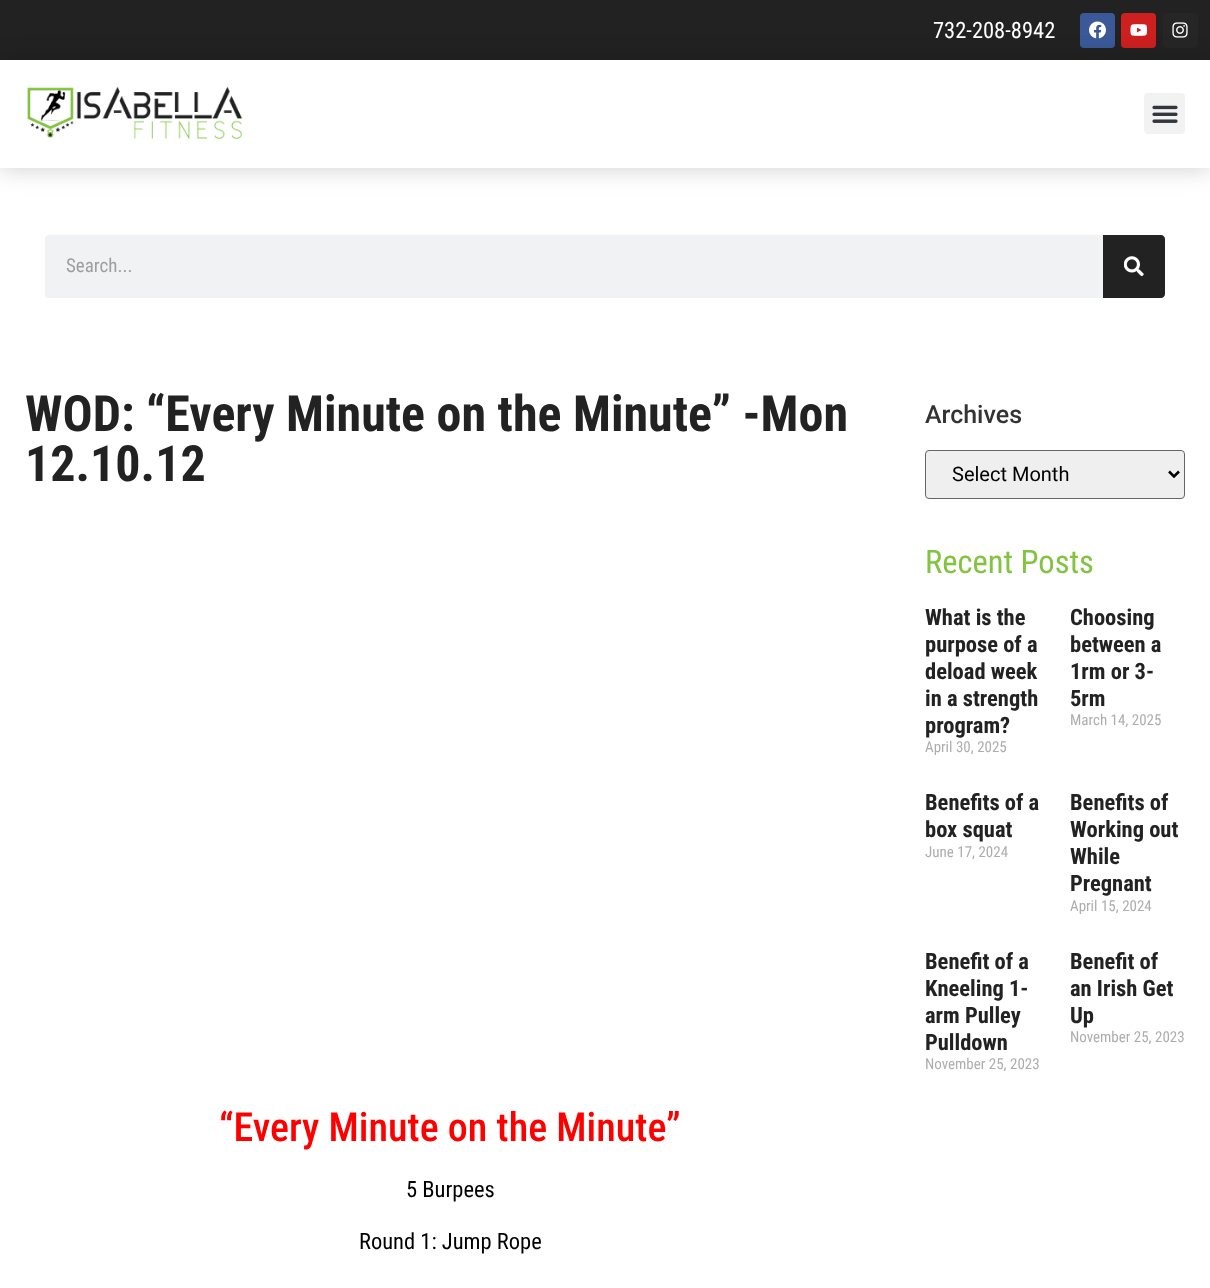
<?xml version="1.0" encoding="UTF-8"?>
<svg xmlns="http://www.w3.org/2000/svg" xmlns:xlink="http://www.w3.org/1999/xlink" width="1210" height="1288">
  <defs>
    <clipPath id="clip1"><path d="M 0 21 h 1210 v 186 h -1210 z m 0 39 h 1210 v 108 h -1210 z" clip-rule="evenodd" /></clipPath>
  </defs>
  <rect width="100%" height="100%" fill="#ffffff" />
  <rect width="1210" height="60" fill="#222222" />
  <rect x="1080" y="13" width="35" height="35" rx="4" fill="#3b5998" />
  <image x="1089" y="21" width="17" height="18" xlink:href="image3.png" />
  <rect x="1121" y="13" width="35" height="35" rx="4" fill="#cd201f" />
  <image x="1130" y="24" width="18" height="12" xlink:href="image4.png" />
  <rect x="1163" y="13" width="35" height="35" rx="4" fill="#262626" />
  <image x="1172" y="22" width="16" height="16" xlink:href="image5.png" />
  <g clip-path="url(#clip1)">
    <rect y="60" width="1210" height="108" fill="#000000" fill-opacity="0.2" filter="blur(12.5px)" />
  </g>
  <image x="27" y="86" width="216" height="53" xlink:href="image1.png" />
  <rect x="1144" y="93" width="41" height="41" rx="4" fill="#f2f2f2" />
  <image x="1152" y="105" width="26" height="18" xlink:href="image2.png" />
  <rect x="45" y="235" width="1120" height="63" rx="4" fill="#f1f2f3" />
  <path d="M 1103 235 h 58 c 2 0 4 2 4 4 v 55 c 0 2 -2 4 -4 4 h -58 z" fill="#222222" />
  <image x="1124" y="256" width="20" height="20" xlink:href="image6.png" />
  <rect x="925.5" y="450.5" width="259" height="48" rx="3.5" fill="#efefef" stroke="#666666" />
  <path d="M 1169 471.5 l 5 5 l 5 -5" fill="none" stroke="#000000" stroke-width="2.5" />
  <text x="933" y="38" style="font-family: Roboto Condensed; font-size: 22.5px; fill: #ffffff">732-208-8942</text>
  <text x="66" y="272" style="font-family: Roboto Condensed; font-size: 19px; fill: #9e9e9e">Search...</text>
  <text x="25" y="431" style="font-family: Roboto Condensed; font-size: 50px; font-weight: bold; fill: #222222">WOD: “Every Minute on the Minute” -Mon</text>
  <text x="25" y="481" style="font-family: Roboto Condensed; font-size: 50px; font-weight: bold; fill: #222222">12.10.12</text>
  <text x="219" y="1141" style="font-family: Roboto Condensed; font-size: 40px; font-weight: 500; fill: #ff0000">“Every Minute on the Minute”</text>
  <text x="406" y="1197" style="font-family: Roboto Condensed; font-size: 22.5px; fill: #000000">5 Burpees</text>
  <text x="359" y="1249" style="font-family: Roboto Condensed; font-size: 22.5px; fill: #000000">Round 1: Jump Rope</text>
  <text x="925" y="423" style="font-family: Roboto; font-size: 25px; font-weight: 500; fill: #333333">Archives</text>
  <text x="952" y="481" style="font-family: Roboto; font-size: 20px; fill: #000000">Select Month</text>
  <text x="925" y="573" style="font-family: Roboto Condensed; font-size: 32.5px; fill: #82c441">Recent Posts</text>
  <text x="925" y="625" style="font-family: Roboto Condensed; font-size: 22.5px; font-weight: bold; fill: #222222">What is the</text>
  <text x="925" y="652" style="font-family: Roboto Condensed; font-size: 22.5px; font-weight: bold; fill: #222222">purpose of a</text>
  <text x="925" y="679" style="font-family: Roboto Condensed; font-size: 22.5px; font-weight: bold; fill: #222222">deload week</text>
  <text x="925" y="706" style="font-family: Roboto Condensed; font-size: 22.5px; font-weight: bold; fill: #222222">in a strength</text>
  <text x="925" y="733" style="font-family: Roboto Condensed; font-size: 22.5px; font-weight: bold; fill: #222222">program?</text>
  <text x="925" y="752" style="font-family: Roboto Condensed; font-size: 15px; fill: #adadad">April 30, 2025</text>
  <text x="1070" y="625" style="font-family: Roboto Condensed; font-size: 22.5px; font-weight: bold; fill: #222222">Choosing</text>
  <text x="1070" y="652" style="font-family: Roboto Condensed; font-size: 22.5px; font-weight: bold; fill: #222222">between a</text>
  <text x="1070" y="679" style="font-family: Roboto Condensed; font-size: 22.5px; font-weight: bold; fill: #222222">1rm or 3-</text>
  <text x="1070" y="706" style="font-family: Roboto Condensed; font-size: 22.5px; font-weight: bold; fill: #222222">5rm</text>
  <text x="1070" y="725" style="font-family: Roboto Condensed; font-size: 15px; fill: #adadad">March 14, 2025</text>
  <text x="925" y="810" style="font-family: Roboto Condensed; font-size: 22.5px; font-weight: bold; fill: #222222">Benefits of a</text>
  <text x="925" y="837" style="font-family: Roboto Condensed; font-size: 22.5px; font-weight: bold; fill: #222222">box squat</text>
  <text x="925" y="857" style="font-family: Roboto Condensed; font-size: 15px; fill: #adadad">June 17, 2024</text>
  <text x="1070" y="810" style="font-family: Roboto Condensed; font-size: 22.5px; font-weight: bold; fill: #222222">Benefits of</text>
  <text x="1070" y="837" style="font-family: Roboto Condensed; font-size: 22.5px; font-weight: bold; fill: #222222">Working out</text>
  <text x="1070" y="864" style="font-family: Roboto Condensed; font-size: 22.5px; font-weight: bold; fill: #222222">While</text>
  <text x="1070" y="891" style="font-family: Roboto Condensed; font-size: 22.5px; font-weight: bold; fill: #222222">Pregnant</text>
  <text x="1070" y="911" style="font-family: Roboto Condensed; font-size: 15px; fill: #adadad">April 15, 2024</text>
  <text x="925" y="969" style="font-family: Roboto Condensed; font-size: 22.5px; font-weight: bold; fill: #222222">Benefit of a</text>
  <text x="925" y="996" style="font-family: Roboto Condensed; font-size: 22.5px; font-weight: bold; fill: #222222">Kneeling 1-</text>
  <text x="925" y="1023" style="font-family: Roboto Condensed; font-size: 22.5px; font-weight: bold; fill: #222222">arm Pulley</text>
  <text x="925" y="1050" style="font-family: Roboto Condensed; font-size: 22.5px; font-weight: bold; fill: #222222">Pulldown</text>
  <text x="925" y="1069" style="font-family: Roboto Condensed; font-size: 15px; fill: #adadad">November 25, 2023</text>
  <text x="1070" y="969" style="font-family: Roboto Condensed; font-size: 22.5px; font-weight: bold; fill: #222222">Benefit of</text>
  <text x="1070" y="996" style="font-family: Roboto Condensed; font-size: 22.5px; font-weight: bold; fill: #222222">an Irish Get</text>
  <text x="1070" y="1023" style="font-family: Roboto Condensed; font-size: 22.5px; font-weight: bold; fill: #222222">Up</text>
  <text x="1070" y="1042" style="font-family: Roboto Condensed; font-size: 15px; fill: #adadad">November 25, 2023</text>
</svg>
